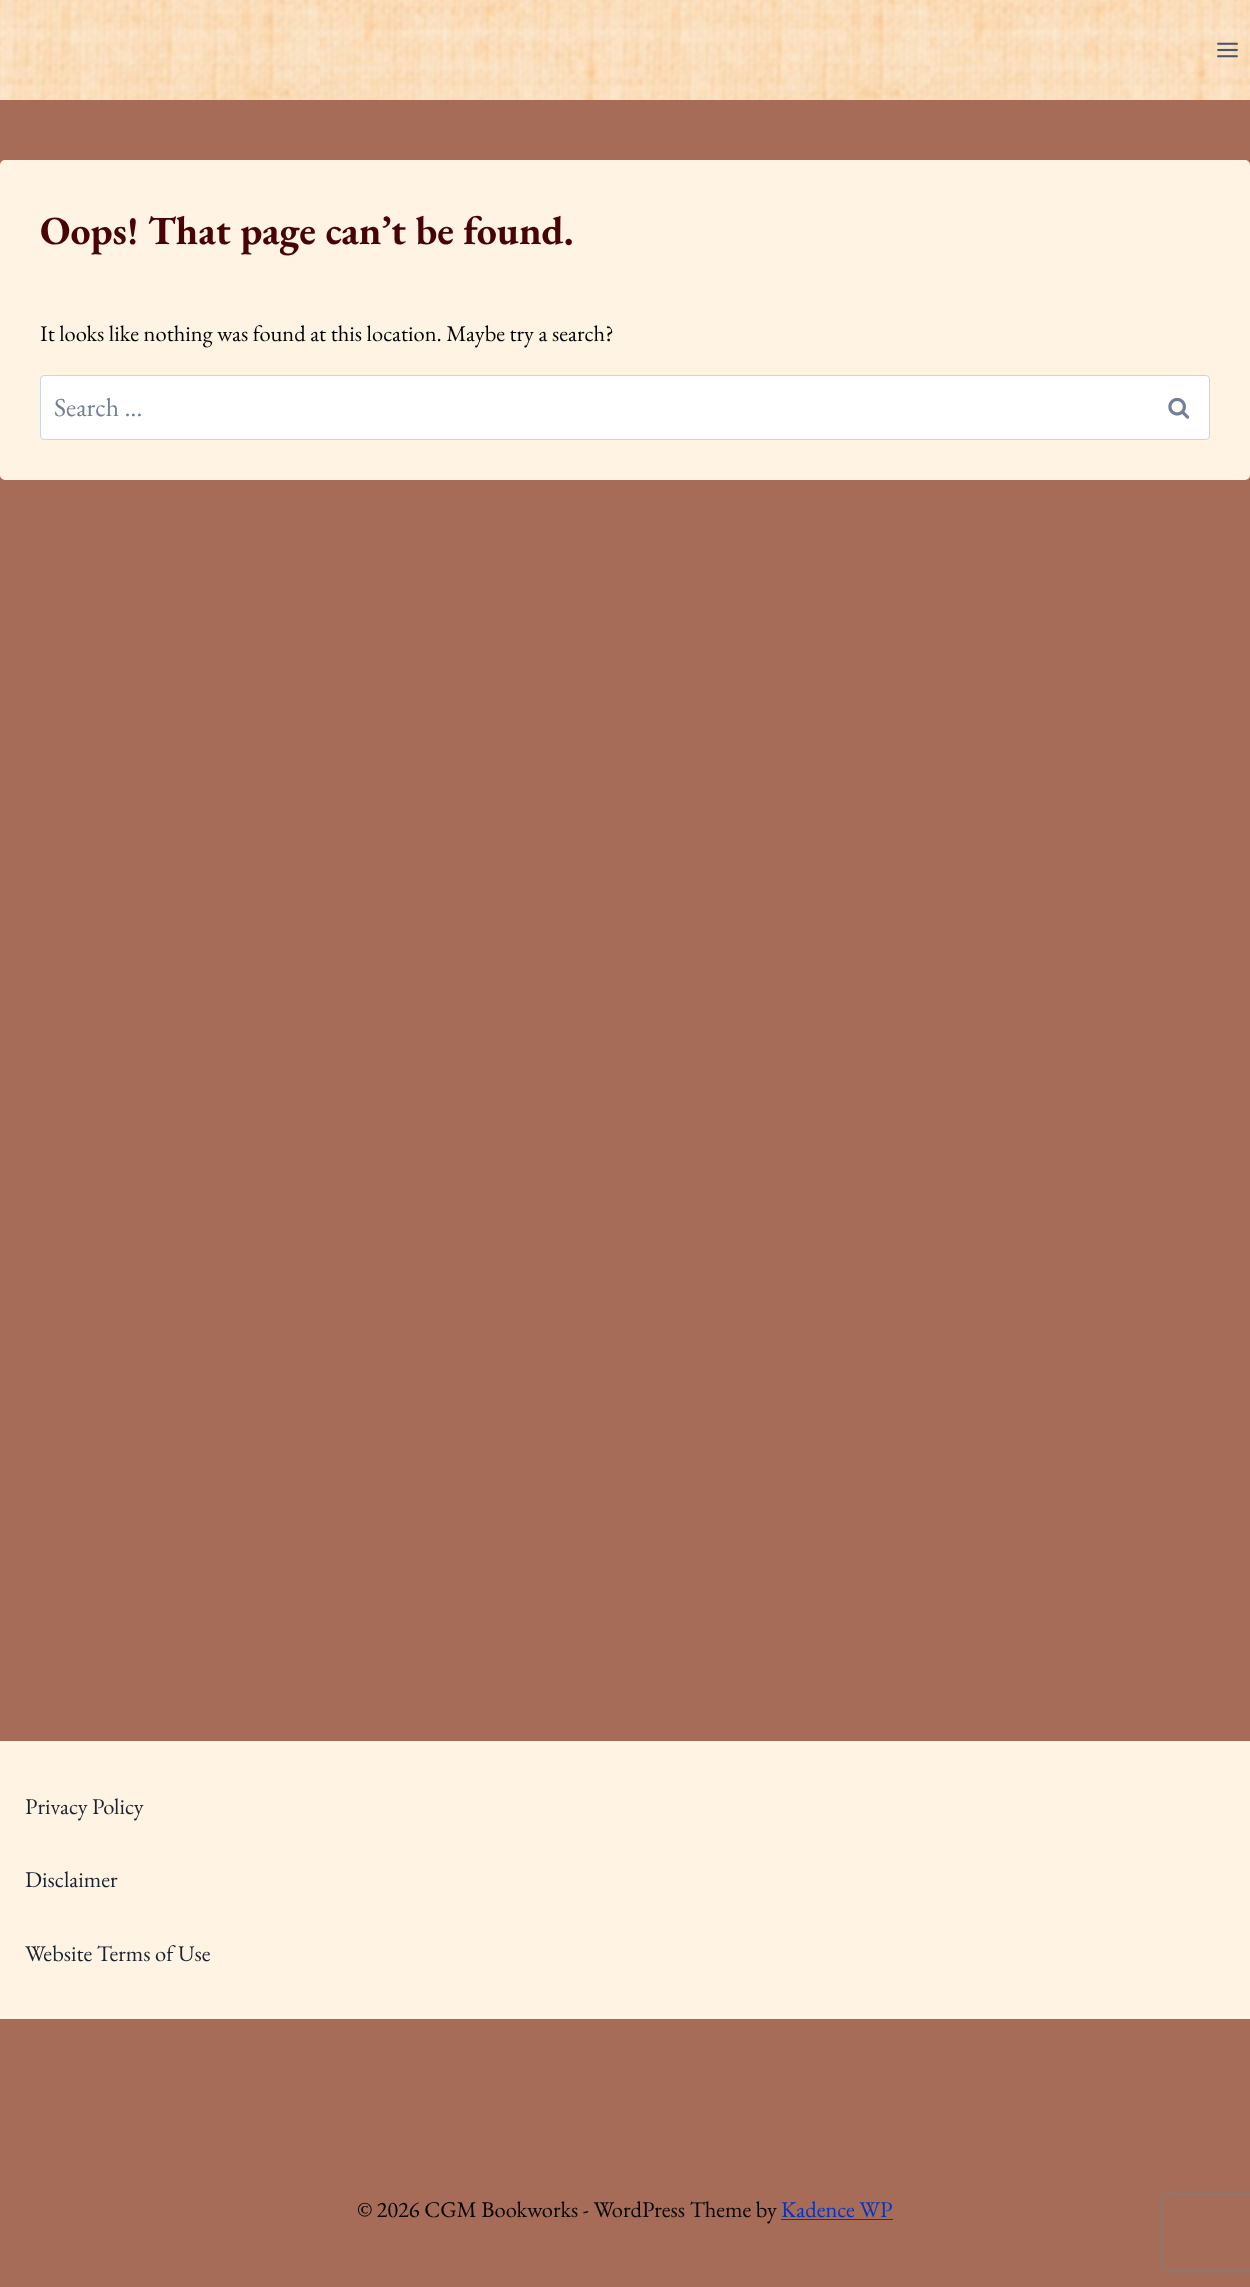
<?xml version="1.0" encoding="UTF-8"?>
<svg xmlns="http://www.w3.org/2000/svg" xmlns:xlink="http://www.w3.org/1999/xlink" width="1250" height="2287">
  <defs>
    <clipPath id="clip1"><path d="M 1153 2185 h 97 v 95 h -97 z m 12.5 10 h 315 c 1.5 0 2.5 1 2.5 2.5 v 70 c 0 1.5 -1 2.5 -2.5 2.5 h -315 c -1.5 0 -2.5 -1 -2.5 -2.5 v -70 c 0 -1.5 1 -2.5 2.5 -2.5 z" clip-rule="evenodd" /></clipPath>
  </defs>
  <rect width="100%" height="100%" fill="#a66c58" />
  <image x="0" y="0" width="1250" height="100" xlink:href="image1.png" />
  <image x="1217" y="42" width="21" height="16" xlink:href="image2.png" />
  <rect y="160" width="1250" height="320" rx="5" fill="#fff4e4" />
  <rect x="40.5" y="375.5" width="1169" height="64" rx="3.5" fill="#ffffff" stroke="#cbd5e0" />
  <image x="1168" y="397" width="22" height="22" xlink:href="image3.png" />
  <rect y="1741" width="1250" height="278" fill="#fff4e4" />
  <rect x="781" y="2219" width="112" height="1" fill="#0033cc" />
  <g clip-path="url(#clip1)">
    <rect x="1163" y="2195" width="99" height="75" rx="2.5" fill="#808080" filter="blur(3px)" />
  </g>
  <text x="40" y="244" style="font-family: EB Garamond; font-size: 40px; font-weight: bold; fill: #480405">Oops! That page can’t be found.</text>
  <text x="40" y="341" style="font-family: EB Garamond; font-size: 22.5px; fill: #000000">It looks like nothing was found at this location. Maybe try a search?</text>
  <text x="54" y="416" style="font-family: EB Garamond; font-size: 26px; fill: #718096">Search …</text>
  <text x="25" y="1814" style="font-family: EB Garamond; font-size: 22.5px; fill: #1a202c">Privacy Policy</text>
  <text x="25" y="1887" style="font-family: EB Garamond; font-size: 22.5px; fill: #1a202c">Disclaimer</text>
  <text x="25" y="1961" style="font-family: EB Garamond; font-size: 22.5px; fill: #1a202c">Website Terms of Use</text>
  <text x="357" y="2217" style="font-family: EB Garamond; font-size: 22.5px; fill: #000000">© 2026 CGM Bookworks - WordPress Theme by</text>
  <text x="781" y="2217" style="font-family: EB Garamond; font-size: 22.5px; fill: #0033cc">Kadence WP</text>
</svg>
